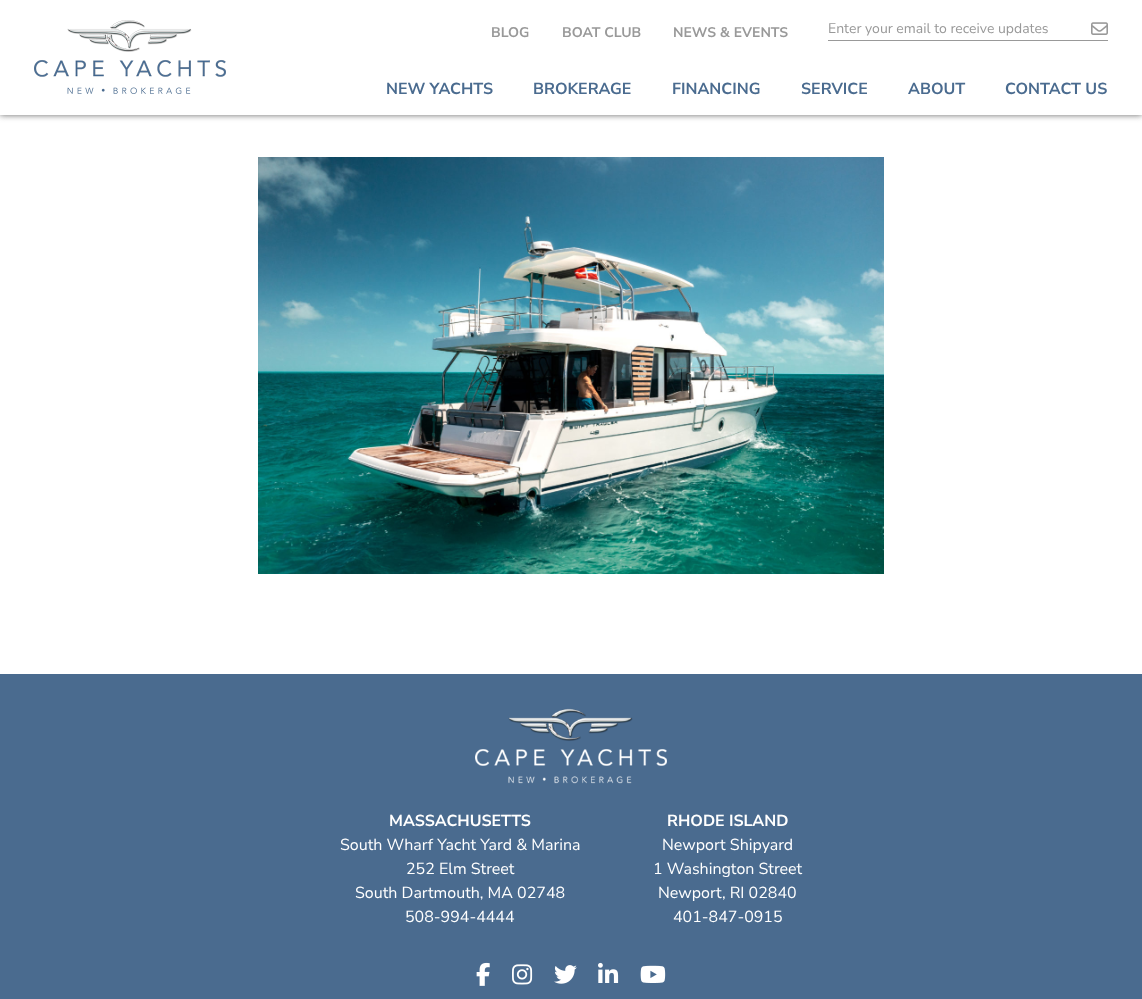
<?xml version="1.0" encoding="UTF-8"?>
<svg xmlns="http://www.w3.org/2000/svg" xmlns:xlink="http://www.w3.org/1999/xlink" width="1142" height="999">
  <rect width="100%" height="100%" fill="#4a6b8f" />
  <rect y="115" width="1142" height="559" fill="#ffffff" />
  <rect width="1142" height="115" fill="#666666" filter="blur(3px)" />
  <rect width="1142" height="115" fill="#ffffff" />
  <image x="34" y="20" width="192" height="74" xlink:href="image1.png" />
  <rect x="828" y="40" width="280" height="1" fill="#999999" />
  <image x="1091" y="22" width="17" height="13" xlink:href="image2.png" />
  <image x="258" y="157" width="626" height="417" xlink:href="image3.png" />
  <image x="475" y="708" width="192" height="76" xlink:href="image4.png" />
  <image x="476" y="962" width="14" height="24" xlink:href="image5.png" />
  <image x="512" y="964" width="21" height="21" xlink:href="image6.png" />
  <image x="554" y="965" width="23" height="19" xlink:href="image7.png" />
  <image x="598" y="962" width="21" height="21" xlink:href="image8.png" />
  <image x="640" y="965" width="26" height="18" xlink:href="image9.png" />
  <text x="491" y="37" style="font-family: Nunito Sans; font-size: 14px; font-weight: bold; fill: #999999">BLOG</text>
  <text x="562" y="37" style="font-family: Nunito Sans; font-size: 14px; font-weight: bold; fill: #999999">BOAT CLUB</text>
  <text x="673" y="37" style="font-family: Nunito Sans; font-size: 14px; font-weight: bold; fill: #999999">NEWS &amp; EVENTS</text>
  <text x="828" y="33" style="font-family: Nunito Sans; font-size: 14px; fill: #999999">Enter your email to receive updates</text>
  <text x="386" y="94" style="font-family: Nunito Sans; font-size: 16px; font-weight: bold; fill: #4a6b8f">NEW YACHTS</text>
  <text x="533" y="94" style="font-family: Nunito Sans; font-size: 16px; font-weight: bold; fill: #4a6b8f">BROKERAGE</text>
  <text x="672" y="94" style="font-family: Nunito Sans; font-size: 16px; font-weight: bold; fill: #4a6b8f">FINANCING</text>
  <text x="801" y="94" style="font-family: Nunito Sans; font-size: 16px; font-weight: bold; fill: #4a6b8f">SERVICE</text>
  <text x="908" y="94" style="font-family: Nunito Sans; font-size: 16px; font-weight: bold; fill: #4a6b8f">ABOUT</text>
  <text x="1005" y="94" style="font-family: Nunito Sans; font-size: 16px; font-weight: bold; fill: #4a6b8f">CONTACT US</text>
  <text x="389" y="826" style="font-family: Nunito Sans; font-size: 16px; font-weight: bold; fill: #ffffff">MASSACHUSETTS</text>
  <text x="340" y="850" style="font-family: Nunito Sans; font-size: 16px; fill: #ffffff">South Wharf Yacht Yard &amp; Marina</text>
  <text x="406" y="874" style="font-family: Nunito Sans; font-size: 16px; fill: #ffffff">252 Elm Street</text>
  <text x="355" y="898" style="font-family: Nunito Sans; font-size: 16px; fill: #ffffff">South Dartmouth, MA 02748</text>
  <text x="405" y="922" style="font-family: Nunito Sans; font-size: 16px; fill: #ffffff">508-994-4444</text>
  <text x="667" y="826" style="font-family: Nunito Sans; font-size: 16px; font-weight: bold; fill: #ffffff">RHODE ISLAND</text>
  <text x="662" y="850" style="font-family: Nunito Sans; font-size: 16px; fill: #ffffff">Newport Shipyard</text>
  <text x="653" y="874" style="font-family: Nunito Sans; font-size: 16px; fill: #ffffff">1 Washington Street</text>
  <text x="658" y="898" style="font-family: Nunito Sans; font-size: 16px; fill: #ffffff">Newport, RI 02840</text>
  <text x="673" y="922" style="font-family: Nunito Sans; font-size: 16px; fill: #ffffff">401-847-0915</text>
</svg>
